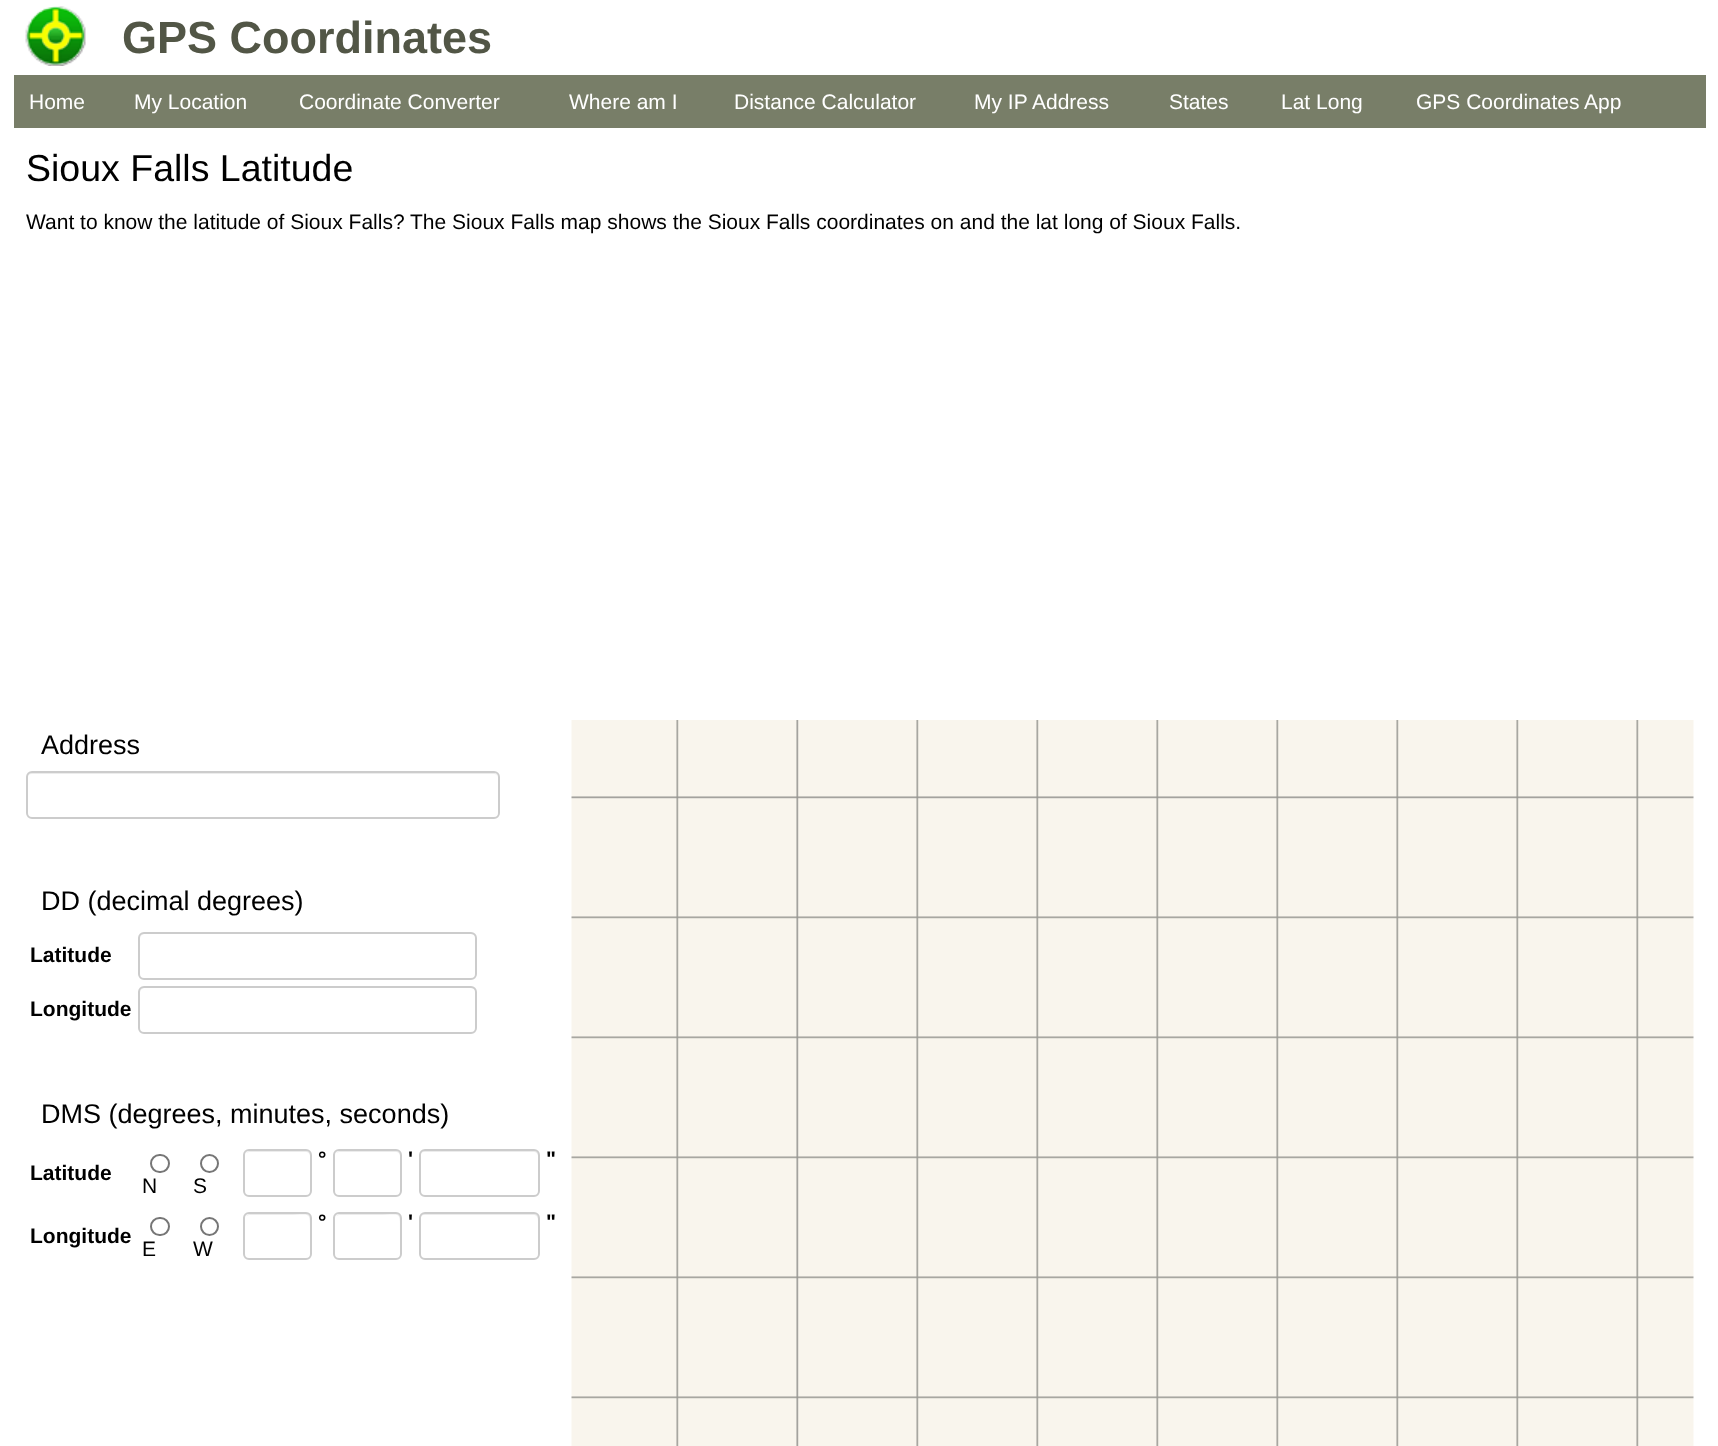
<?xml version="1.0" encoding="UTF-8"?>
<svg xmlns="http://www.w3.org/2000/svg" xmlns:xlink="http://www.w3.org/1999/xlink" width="1718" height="1446">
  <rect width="100%" height="100%" fill="#ffffff" />
  <image x="25" y="6" width="61" height="60" xlink:href="image1.png" />
  <rect x="14" y="75" width="1692" height="53" fill="#787e68" />
  <path d="M 32 774 h 462 c 2 0 4 2 4 4 c 0 -3 -2 -5 -5 -5 h -461 c -3 0 -5 2 -5 5 c 0 -2 2 -4 5 -4 z" fill="#ececec" />
  <rect x="27" y="772" width="472" height="46" rx="5" fill="none" stroke="#cccccc" stroke-width="2" />
  <path d="M 144 934 h 327 c 2 0 5 3 5 5 c 0 -3 -2 -6 -5 -6 h -326 c -3 0 -5 3 -5 6 c 0 -2 2 -5 4 -5 z" fill="#ececec" />
  <rect x="139" y="933" width="337" height="46" rx="5" fill="none" stroke="#cccccc" stroke-width="2" />
  <path d="M 144 988 h 327 c 2 0 5 3 5 5 c 0 -3 -2 -6 -5 -6 h -326 c -3 0 -5 3 -5 6 c 0 -2 2 -5 4 -5 z" fill="#ececec" />
  <rect x="139" y="987" width="337" height="46" rx="5" fill="none" stroke="#cccccc" stroke-width="2" />
  <path d="M 249 1152 h 57 c 2 0 4 2 4 4 v 36 l -1 3 c 1 -1 2 -3 2 -4 v -35 c 0 -3 -2 -5 -5 -5 h -56 c -2 0 -3 1 -4 2 z" fill="#ececec" />
  <rect x="244" y="1150" width="67" height="46" rx="5" fill="none" stroke="#cccccc" stroke-width="2" />
  <path d="M 339 1152 h 57 c 2 0 4 2 4 4 v 36 l -1 3 c 1 -1 2 -3 2 -4 v -35 c 0 -3 -2 -5 -5 -5 h -56 c -2 0 -3 1 -4 2 z" fill="#ececec" />
  <rect x="334" y="1150" width="67" height="46" rx="5" fill="none" stroke="#cccccc" stroke-width="2" />
  <path d="M 424 1152 h 110 c 2 0 4 2 4 4 v 36 l -1 3 c 1 -1 2 -3 2 -4 v -35 c 0 -3 -2 -5 -5 -5 h -109 c -3 0 -5 2 -5 5 c 0 -2 2 -4 4 -4 z" fill="#ececec" />
  <rect x="420" y="1150" width="119" height="46" rx="5" fill="none" stroke="#cccccc" stroke-width="2" />
  <rect x="151" y="1155" width="18" height="17" rx="8.5" fill="none" stroke="#767676" stroke-width="2" />
  <circle cx="209.5" cy="1163.5" r="8.5" fill="none" stroke="#767676" stroke-width="2" />
  <path d="M 249 1215 h 38 c 24 0 23 -5 23 17 v 25 c 1 -1 1 -2 1 -3 v -35 c 0 -3 -2 -5 -5 -5 h -56 c -2 0 -3 1 -4 2 z" fill="#ececec" />
  <rect x="244" y="1213" width="67" height="46" rx="5" fill="none" stroke="#cccccc" stroke-width="2" />
  <path d="M 339 1215 h 38 c 24 0 23 -5 23 17 v 25 c 1 -1 1 -2 1 -3 v -35 c 0 -3 -2 -5 -5 -5 h -56 c -2 0 -3 1 -4 2 z" fill="#ececec" />
  <rect x="334" y="1213" width="67" height="46" rx="5" fill="none" stroke="#cccccc" stroke-width="2" />
  <path d="M 424 1215 h 110 c 5 0 4 8 4 11 v 31 c 1 -1 1 -2 1 -3 v -35 c 0 -3 -2 -5 -5 -5 h -109 c -3 0 -5 2 -5 5 v 1 c 0 -3 2 -5 4 -5 z" fill="#ececec" />
  <rect x="420" y="1213" width="119" height="46" rx="5" fill="none" stroke="#cccccc" stroke-width="2" />
  <rect x="151" y="1218" width="18" height="17" rx="8.5" fill="none" stroke="#767676" stroke-width="2" />
  <circle cx="209.5" cy="1226.5" r="8.5" fill="none" stroke="#767676" stroke-width="2" />
  <image x="571" y="720" width="1123" height="726" xlink:href="image2.png" />
  <text x="122" y="53" style="font-family: Liberation Sans; font-size: 45px; font-weight: bold; fill: #525646">GPS Coordinates</text>
  <text x="29" y="109" style="font-family: Liberation Sans; font-size: 21px; fill: #ffffff">Home</text>
  <text x="134" y="109" style="font-family: Liberation Sans; font-size: 21px; fill: #ffffff">My Location</text>
  <text x="299" y="109" style="font-family: Liberation Sans; font-size: 21px; fill: #ffffff">Coordinate Converter</text>
  <text x="569" y="109" style="font-family: Liberation Sans; font-size: 21px; fill: #ffffff">Where am I</text>
  <text x="734" y="109" style="font-family: Liberation Sans; font-size: 21px; fill: #ffffff">Distance Calculator</text>
  <text x="974" y="109" style="font-family: Liberation Sans; font-size: 21px; fill: #ffffff">My IP Address</text>
  <text x="1169" y="109" style="font-family: Liberation Sans; font-size: 21px; fill: #ffffff">States</text>
  <text x="1281" y="109" style="font-family: Liberation Sans; font-size: 21px; fill: #ffffff">Lat Long</text>
  <text x="1416" y="109" style="font-family: Liberation Sans; font-size: 21px; fill: #ffffff">GPS Coordinates App</text>
  <text x="26" y="181" style="font-family: Liberation Sans; font-size: 37.5px; fill: #000000">Sioux Falls Latitude</text>
  <text x="26" y="229" style="font-family: Liberation Sans; font-size: 21px; fill: #000000">Want to know the latitude of Sioux Falls? The Sioux Falls map shows the Sioux Falls coordinates on and the lat long of Sioux Falls.</text>
  <text x="41" y="754" style="font-family: Liberation Sans; font-size: 27px; fill: #000000">Address</text>
  <text x="41" y="910" style="font-family: Liberation Sans; font-size: 27px; fill: #000000">DD (decimal degrees)</text>
  <text x="30" y="962" style="font-family: Liberation Sans; font-size: 21px; font-weight: bold; fill: #000000">Latitude</text>
  <text x="30" y="1016" style="font-family: Liberation Sans; font-size: 21px; font-weight: bold; fill: #000000">Longitude</text>
  <text x="41" y="1123" style="font-family: Liberation Sans; font-size: 27px; fill: #000000">DMS (degrees, minutes, seconds)</text>
  <text x="30" y="1180" style="font-family: Liberation Sans; font-size: 21px; font-weight: bold; fill: #000000">Latitude</text>
  <text x="318" y="1166" style="font-family: Liberation Sans; font-size: 21px; font-weight: bold; fill: #000000">°</text>
  <text x="408" y="1166" style="font-family: Liberation Sans; font-size: 21px; font-weight: bold; fill: #000000">'</text>
  <text x="546" y="1166" style="font-family: Liberation Sans; font-size: 21px; font-weight: bold; fill: #000000">"</text>
  <text x="142" y="1193" style="font-family: Liberation Sans; font-size: 21px; fill: #000000">N</text>
  <text x="193" y="1193" style="font-family: Liberation Sans; font-size: 21px; fill: #000000">S</text>
  <text x="30" y="1243" style="font-family: Liberation Sans; font-size: 21px; font-weight: bold; fill: #000000">Longitude</text>
  <text x="318" y="1229" style="font-family: Liberation Sans; font-size: 21px; font-weight: bold; fill: #000000">°</text>
  <text x="408" y="1229" style="font-family: Liberation Sans; font-size: 21px; font-weight: bold; fill: #000000">'</text>
  <text x="546" y="1229" style="font-family: Liberation Sans; font-size: 21px; font-weight: bold; fill: #000000">"</text>
  <text x="142" y="1256" style="font-family: Liberation Sans; font-size: 21px; fill: #000000">E</text>
  <text x="193" y="1256" style="font-family: Liberation Sans; font-size: 21px; fill: #000000">W</text>
</svg>
